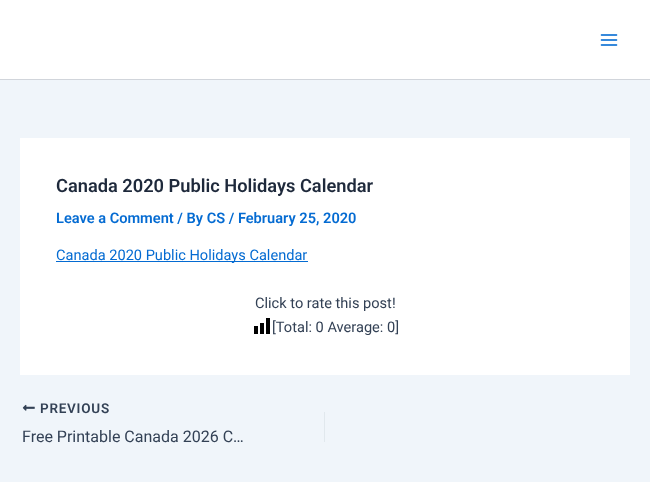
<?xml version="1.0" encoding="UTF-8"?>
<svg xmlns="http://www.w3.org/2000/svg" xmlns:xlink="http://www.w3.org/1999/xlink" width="650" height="482">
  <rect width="100%" height="100%" fill="#f0f5fa" />
  <rect width="650" height="79" fill="#ffffff" />
  <rect y="79" width="650" height="1" fill="#d1d5db" />
  <image x="600" y="34" width="18" height="12" xlink:href="image1.png" />
  <rect x="20" y="138" width="610" height="237" fill="#ffffff" />
  <rect x="56" y="261" width="252" height="1" fill="#046bd2" />
  <image x="254" y="318" width="16" height="16" xlink:href="image2.png" />
  <image x="22" y="404" width="13" height="7" xlink:href="image3.png" />
  <rect x="324" y="412" width="1" height="30" fill="#e1e8ed" />
  <text x="56" y="192" style="font-family: Roboto; font-size: 18.25px; font-weight: 600; fill: #1e293b">Canada 2020 Public Holidays Calendar</text>
  <text x="56" y="223" style="font-family: Roboto; font-size: 14.6px; font-weight: 600; fill: #046bd2">Leave a Comment / By CS / February 25, 2020</text>
  <text x="56" y="260" style="font-family: Roboto; font-size: 14.6px; fill: #046bd2">Canada 2020 Public Holidays Calendar</text>
  <text x="255" y="308" style="font-family: Roboto; font-size: 14.6px; fill: #334155">Click to rate this post!</text>
  <text x="272" y="332" style="font-family: Roboto; font-size: 14.6px; fill: #334155">[Total: 0 Average: 0]</text>
  <text x="40" y="413" style="font-family: Roboto; font-size: 13.5px; font-weight: 600; letter-spacing: 0.75px; fill: #334155">PREVIOUS</text>
  <text x="22" y="442" style="font-family: Roboto; font-size: 16px; fill: #334155">Free Printable Canada 2026 C…</text>
</svg>
